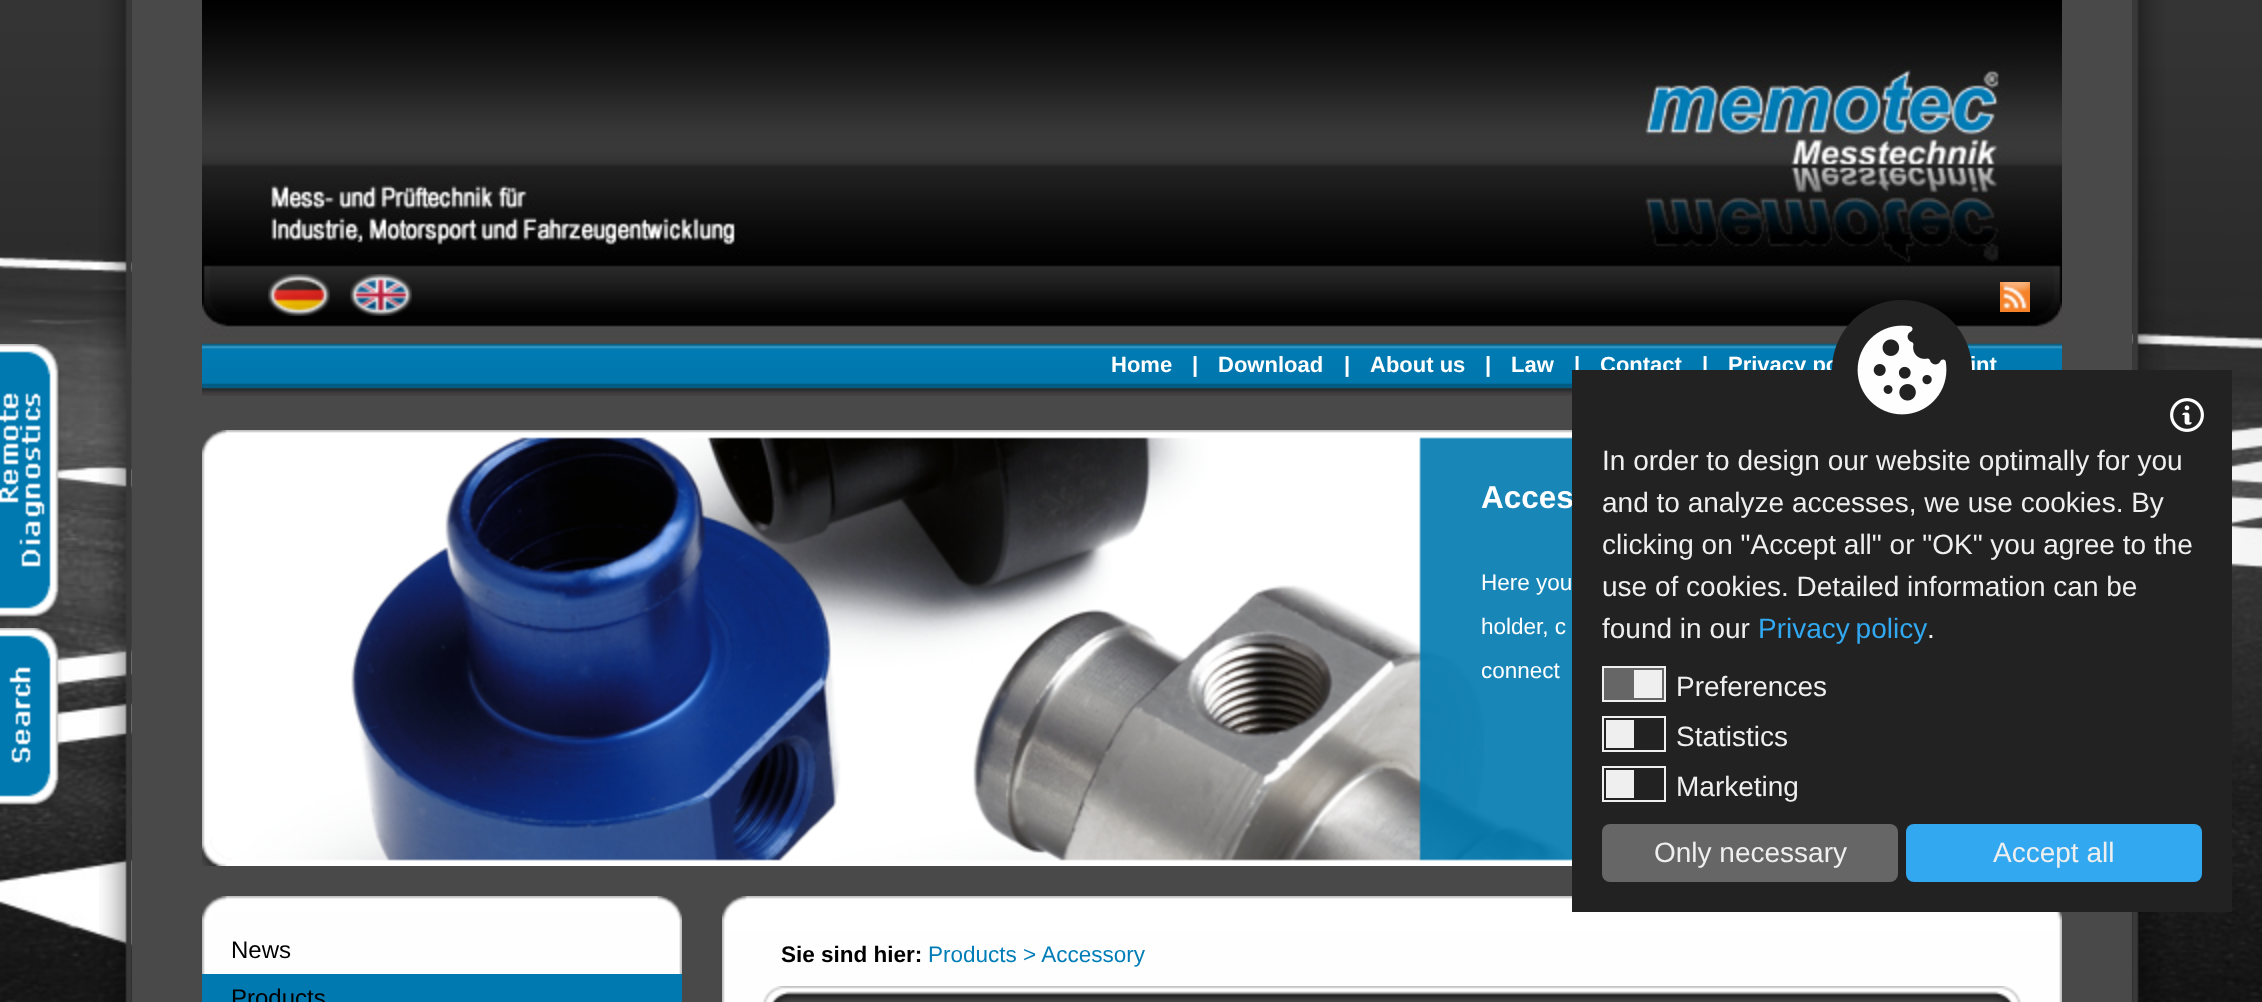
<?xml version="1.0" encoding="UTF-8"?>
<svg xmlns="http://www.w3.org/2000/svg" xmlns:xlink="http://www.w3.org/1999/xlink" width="2262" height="1002">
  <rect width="100%" height="100%" fill="#ffffff" />
  <image x="0" y="0" width="2262" height="1002" xlink:href="image1.png" />
  <image x="0" y="344" width="62" height="278" xlink:href="image2.png" />
  <image x="0" y="628" width="62" height="181" xlink:href="image3.png" />
  <image x="99" y="0" width="2066" height="1002" xlink:href="image4.png" />
  <rect x="132" width="2000" height="1002" fill="#4a4949" />
  <image x="202" y="0" width="1860" height="396" xlink:href="image5.png" />
  <image x="268" y="274" width="62" height="42" xlink:href="image6.png" />
  <image x="350" y="274" width="62" height="42" xlink:href="image7.png" />
  <image x="2000" y="282" width="30" height="30" xlink:href="image8.png" />
  <image x="202" y="430" width="1370" height="436" xlink:href="image9.png" />
  <image x="202" y="903" width="480" height="71" xlink:href="image10.png" />
  <image x="202" y="896" width="480" height="24" xlink:href="image11.png" />
  <rect x="202" y="974" width="480" height="28" fill="#0079b0" />
  <image x="722" y="903" width="1340" height="99" xlink:href="image12.png" />
  <image x="722" y="896" width="1340" height="24" xlink:href="image13.png" />
  <image x="763" y="986" width="1258" height="16" xlink:href="image14.png" />
  <text x="1111" y="372" style="font-family: Liberation Sans; font-size: 22px; font-weight: bold; fill: #ffffff">Home</text>
  <text x="1192" y="372" style="font-family: Liberation Sans; font-size: 22px; font-weight: bold; fill: #ffffff">|</text>
  <text x="1218" y="372" style="font-family: Liberation Sans; font-size: 22px; font-weight: bold; fill: #ffffff">Download</text>
  <text x="1344" y="372" style="font-family: Liberation Sans; font-size: 22px; font-weight: bold; fill: #ffffff">|</text>
  <text x="1370" y="372" style="font-family: Liberation Sans; font-size: 22px; font-weight: bold; fill: #ffffff">About us</text>
  <text x="1485" y="372" style="font-family: Liberation Sans; font-size: 22px; font-weight: bold; fill: #ffffff">|</text>
  <text x="1511" y="372" style="font-family: Liberation Sans; font-size: 22px; font-weight: bold; fill: #ffffff">Law</text>
  <text x="1574" y="372" style="font-family: Liberation Sans; font-size: 22px; font-weight: bold; fill: #ffffff">|</text>
  <text x="1600" y="372" style="font-family: Liberation Sans; font-size: 22px; font-weight: bold; fill: #ffffff">Contact</text>
  <text x="1702" y="372" style="font-family: Liberation Sans; font-size: 22px; font-weight: bold; fill: #ffffff">|</text>
  <text x="1728" y="372" style="font-family: Liberation Sans; font-size: 22px; font-weight: bold; fill: #ffffff">Privacy po</text>
  <text x="1970" y="372" style="font-family: Liberation Sans; font-size: 22px; font-weight: bold; fill: #ffffff">int</text>
  <text x="1481" y="508" style="font-family: Liberation Sans; font-size: 31.5px; font-weight: bold; fill: #ffffff">Acces</text>
  <text x="1481" y="590" style="font-family: Liberation Sans; font-size: 22.5px; fill: #ffffff">Here you</text>
  <text x="1481" y="634" style="font-family: Liberation Sans; font-size: 22.5px; fill: #ffffff">holder, c</text>
  <text x="1481" y="678" style="font-family: Liberation Sans; font-size: 22.5px; fill: #ffffff">connect</text>
  <text x="231" y="958" style="font-family: Liberation Sans; font-size: 24px; fill: #000000">News</text>
  <text x="231" y="1006" style="font-family: Liberation Sans; font-size: 24px; fill: #000000">Products</text>
  <text x="781" y="962" style="font-family: Liberation Sans; font-size: 22.5px; font-weight: bold; fill: #000000">Sie sind hier:</text>
  <text x="928" y="962" style="font-family: Liberation Sans; font-size: 22.5px; fill: #007db6">Products &gt; Accessory</text>
  <rect x="1572" y="370" width="660" height="542" fill="#222222" />
  <image x="1832" y="300" width="140" height="115" xlink:href="image15.png" />
  <image x="2170" y="398" width="34" height="34" xlink:href="image16.png" />
  <text x="1602" y="470" style="font-family: Liberation Sans; font-size: 28px; fill: #efefef">In order to design our website optimally for you</text>
  <text x="1602" y="512" style="font-family: Liberation Sans; font-size: 28px; fill: #efefef">and to analyze accesses, we use cookies. By</text>
  <text x="1602" y="554" style="font-family: Liberation Sans; font-size: 28px; fill: #efefef">clicking on "Accept all" or "OK" you agree to the</text>
  <text x="1602" y="596" style="font-family: Liberation Sans; font-size: 28px; fill: #efefef">use of cookies. Detailed information can be</text>
  <text x="1602" y="638" style="font-family: Liberation Sans; font-size: 28px; fill: #efefef">found in our</text>
  <text x="1758" y="638" word-spacing="-2" style="font-family: Liberation Sans; font-size: 28px; fill: #31a8f0">Privacy policy</text>
  <text x="1927" y="638" style="font-family: Liberation Sans; font-size: 28px; fill: #efefef">.</text>
  <rect x="1603" y="667" width="62" height="34" fill="#666666" stroke="#efefef" stroke-width="2" />
  <rect x="1634" y="670" width="28" height="28" fill="#efefef" />
  <text x="1676" y="696" style="font-family: Liberation Sans; font-size: 28px; fill: #efefef">Preferences</text>
  <rect x="1603" y="717" width="62" height="34" fill="none" stroke="#efefef" stroke-width="2" />
  <rect x="1606" y="720" width="28" height="28" fill="#efefef" />
  <text x="1676" y="746" style="font-family: Liberation Sans; font-size: 28px; fill: #efefef">Statistics</text>
  <rect x="1603" y="767" width="62" height="34" fill="none" stroke="#efefef" stroke-width="2" />
  <rect x="1606" y="770" width="28" height="28" fill="#efefef" />
  <text x="1676" y="796" style="font-family: Liberation Sans; font-size: 28px; fill: #efefef">Marketing</text>
  <rect x="1602" y="824" width="296" height="58" rx="8" fill="#666666" />
  <text x="1654" y="862" style="font-family: Liberation Sans; font-size: 28px; fill: #efefef">Only necessary</text>
  <rect x="1906" y="824" width="296" height="58" rx="8" fill="#31a8f0" />
  <text x="1993" y="862" style="font-family: Liberation Sans; font-size: 28px; fill: #efefef">Accept all</text>
</svg>
